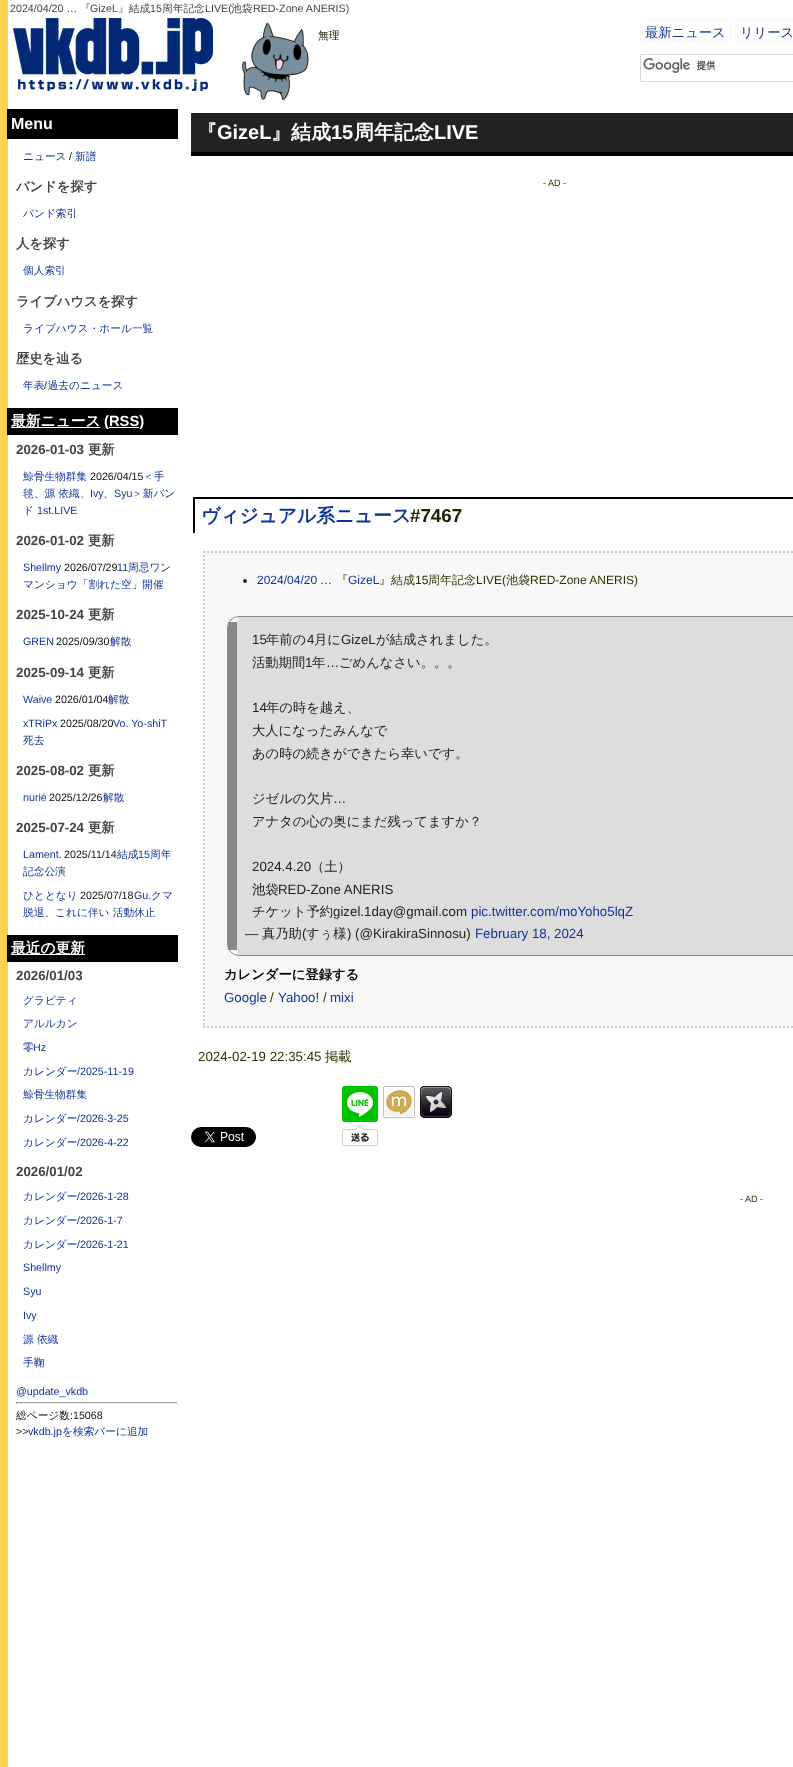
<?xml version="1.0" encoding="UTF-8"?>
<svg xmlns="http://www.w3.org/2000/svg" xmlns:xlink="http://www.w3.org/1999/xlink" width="793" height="1767">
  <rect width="100%" height="100%" fill="#ffffff" />
  <rect width="8" height="1767" fill="#fcd14f" />
  <image x="13" y="18" width="200" height="73" xlink:href="image1.png" />
  <image x="241" y="22" width="68" height="79" xlink:href="image2.png" />
  <rect x="640.5" y="20.5" width="90" height="21" fill="none" stroke="#f8f8f8" />
  <rect x="735.5" y="20.5" width="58" height="21" fill="none" stroke="#f8f8f8" />
  <rect x="640.5" y="54.5" width="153" height="27" fill="none" stroke="#d9d9d9" />
  <image x="643" y="58" width="73" height="15" xlink:href="image3.png" />
  <rect x="7" y="109" width="171" height="30" fill="#000000" />
  <rect x="7" y="408" width="171" height="27" fill="#000000" />
  <rect x="11" y="427" width="89" height="1" fill="#ffffff" />
  <rect x="109" y="427" width="30" height="1" fill="#ffffff" />
  <rect x="7" y="935" width="171" height="27" fill="#000000" />
  <rect x="11" y="954" width="74" height="1" fill="#ffffff" />
  <rect x="16" y="1402" width="162" height="1" fill="#9f9f9f" />
  <rect x="177" y="1402" width="1" height="2" fill="#eeeeee" />
  <rect x="16" y="1403" width="162" height="1" fill="#eeeeee" />
  <rect x="16" y="1402" width="1" height="2" fill="#9f9f9f" />
  <rect x="191" y="113" width="602" height="39" fill="#222222" />
  <rect x="191" y="152" width="602" height="4" fill="#000000" />
  <rect x="193" y="497" width="600" height="2" fill="#000000" />
  <rect x="193" y="497" width="2" height="36" fill="#000000" />
  <rect x="203" y="551" width="590" height="477" fill="#f8f8f8" />
  <path d="M 203 552 h 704" fill="none" stroke="#cccccc" stroke-width="2" stroke-dasharray="2 2" />
  <path d="M 203 1027 h 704" fill="none" stroke="#cccccc" stroke-width="2" stroke-dasharray="2 2" />
  <path d="M 204 551 v 477" fill="none" stroke="#cccccc" stroke-width="2" stroke-dasharray="2 2" />
  <circle cx="245" cy="581" r="2" fill="#333300" />
  <path d="M 239 617 h 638 c 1 0 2 5 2 11 v 316 c 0 6 -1 11 -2 11 h -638 c -1 0 -2 -5 -2 -11 v -316 c 0 -6 1 -11 2 -11 z" fill="#dddddd" />
  <rect x="227.5" y="616.5" width="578" height="339" rx="11.5" fill="none" stroke="#888888" />
  <rect x="228" y="622" width="9" height="328" fill="#888888" />
  <image x="342" y="1086" width="36" height="60" xlink:href="image4.png" />
  <image x="383" y="1086" width="32" height="32" xlink:href="image5.png" />
  <image x="420" y="1086" width="32" height="32" xlink:href="image6.png" />
  <image x="191" y="1127" width="65" height="20" xlink:href="image7.png" />
  <text x="10" y="12" style="font-family: Liberation Sans; font-size: 10.7px; fill: #444444">2024/04/20 …</text>
  <text x="80" y="12" style="font-family: WenQuanYi Zen Hei; font-size: 10.7px; font-weight: 500; fill: #444444">『</text>
  <text x="90" y="12" style="font-family: Liberation Sans; font-size: 10.7px; fill: #444444">GizeL</text>
  <text x="118" y="12" style="font-family: WenQuanYi Zen Hei; font-size: 10.7px; font-weight: 500; fill: #444444">』結成</text>
  <text x="150" y="12" style="font-family: Liberation Sans; font-size: 10.7px; fill: #444444">15</text>
  <text x="162" y="12" style="font-family: WenQuanYi Zen Hei; font-size: 10.7px; font-weight: 500; fill: #444444">周年記念</text>
  <text x="205" y="12" style="font-family: Liberation Sans; font-size: 10.7px; fill: #444444">LIVE(</text>
  <text x="231" y="12" style="font-family: WenQuanYi Zen Hei; font-size: 10.7px; font-weight: 500; fill: #444444">池袋</text>
  <text x="253" y="12" style="font-family: Liberation Sans; font-size: 10.7px; fill: #444444">RED-Zone ANERIS)</text>
  <text x="318" y="39" style="font-family: WenQuanYi Zen Hei; font-size: 10.7px; font-weight: 500; fill: #111100">無理</text>
  <text x="645" y="37" style="font-family: WenQuanYi Zen Hei; font-size: 13.3px; font-weight: 500; fill: #113399">最新ニュース</text>
  <text x="740" y="37" style="font-family: WenQuanYi Zen Hei; font-size: 13.3px; font-weight: 500; fill: #113399">リリース</text>
  <text x="11" y="129" style="font-family: Liberation Sans; font-size: 16px; font-weight: bold; fill: #ffffff">Menu</text>
  <text x="23" y="160" style="font-family: WenQuanYi Zen Hei; font-size: 10.7px; font-weight: 500; fill: #113399">ニュース</text>
  <text x="69" y="160" style="font-family: Liberation Sans; font-size: 10.7px; fill: #111111">/</text>
  <text x="75" y="160" style="font-family: WenQuanYi Zen Hei; font-size: 10.7px; font-weight: 500; fill: #113399">新譜</text>
  <text x="16" y="191" style="font-family: WenQuanYi Zen Hei; font-size: 13.3px; font-weight: bold; fill: #444444">バンドを探す</text>
  <text x="23" y="217" style="font-family: WenQuanYi Zen Hei; font-size: 10.7px; font-weight: 500; fill: #113399">バンド索引</text>
  <text x="16" y="248" style="font-family: WenQuanYi Zen Hei; font-size: 13.3px; font-weight: bold; fill: #444444">人を探す</text>
  <text x="23" y="274" style="font-family: WenQuanYi Zen Hei; font-size: 10.7px; font-weight: 500; fill: #113399">個人索引</text>
  <text x="16" y="306" style="font-family: WenQuanYi Zen Hei; font-size: 13.3px; font-weight: bold; fill: #444444">ライブハウスを探す</text>
  <text x="23" y="332" style="font-family: WenQuanYi Zen Hei; font-size: 10.7px; font-weight: 500; fill: #113399">ライブハウス・ホール一覧</text>
  <text x="16" y="363" style="font-family: WenQuanYi Zen Hei; font-size: 13.3px; font-weight: bold; fill: #444444">歴史を辿る</text>
  <text x="23" y="389" style="font-family: WenQuanYi Zen Hei; font-size: 10.7px; font-weight: 500; fill: #113399">年表 過去のニュース</text>
  <text x="44" y="389" style="font-family: Liberation Sans; font-size: 10.7px; fill: #111111">/</text>
  <text x="11" y="426" style="font-family: WenQuanYi Zen Hei; font-size: 14.75px; font-weight: bold; fill: #ffffff">最新ニュース</text>
  <text x="104" y="426" style="font-family: Liberation Sans; font-size: 14.75px; font-weight: bold; fill: #ffffff">(RSS)</text>
  <text x="16" y="454" style="font-family: Liberation Sans; font-size: 13.3px; font-weight: bold; fill: #444444">2026-01-03</text>
  <text x="88" y="454" style="font-family: WenQuanYi Zen Hei; font-size: 13.3px; font-weight: bold; fill: #444444">更新</text>
  <text x="23" y="480" style="font-family: WenQuanYi Zen Hei; font-size: 10.7px; font-weight: 500; fill: #113399">鯨骨生物群集</text>
  <text x="90" y="480" style="font-family: Liberation Sans; font-size: 10.7px; fill: #111111">2026/04/15</text>
  <text x="143" y="480" style="font-family: WenQuanYi Zen Hei; font-size: 10.7px; font-weight: 500; fill: #113399">＜手</text>
  <text x="23" y="497" style="font-family: WenQuanYi Zen Hei; font-size: 10.7px; font-weight: 500; fill: #113399">毬、源 依織、</text>
  <text x="90" y="497" style="font-family: Liberation Sans; font-size: 10.7px; fill: #113399">Ivy</text>
  <text x="103" y="497" style="font-family: WenQuanYi Zen Hei; font-size: 10.7px; font-weight: 500; fill: #113399">、</text>
  <text x="114" y="497" style="font-family: Liberation Sans; font-size: 10.7px; fill: #113399">Syu</text>
  <text x="132" y="497" style="font-family: WenQuanYi Zen Hei; font-size: 10.7px; font-weight: 500; fill: #113399">＞新バン</text>
  <text x="23" y="514" style="font-family: WenQuanYi Zen Hei; font-size: 10.7px; font-weight: 500; fill: #113399">ド</text>
  <text x="37" y="514" style="font-family: Liberation Sans; font-size: 10.7px; fill: #113399">1st.LIVE</text>
  <text x="16" y="545" style="font-family: Liberation Sans; font-size: 13.3px; font-weight: bold; fill: #444444">2026-01-02</text>
  <text x="88" y="545" style="font-family: WenQuanYi Zen Hei; font-size: 13.3px; font-weight: bold; fill: #444444">更新</text>
  <text x="23" y="571" style="font-family: Liberation Sans; font-size: 10.7px; fill: #113399">Shellmy</text>
  <text x="64" y="571" style="font-family: Liberation Sans; font-size: 10.7px; fill: #111111">2026/07/29</text>
  <text x="117" y="571" style="font-family: Liberation Sans; font-size: 10.7px; fill: #113399">11</text>
  <text x="128" y="571" style="font-family: WenQuanYi Zen Hei; font-size: 10.7px; font-weight: 500; fill: #113399">周忌ワン</text>
  <text x="23" y="588" style="font-family: WenQuanYi Zen Hei; font-size: 10.7px; font-weight: 500; fill: #113399">マンショウ「割れた空」開催</text>
  <text x="16" y="619" style="font-family: Liberation Sans; font-size: 13.3px; font-weight: bold; fill: #444444">2025-10-24</text>
  <text x="88" y="619" style="font-family: WenQuanYi Zen Hei; font-size: 13.3px; font-weight: bold; fill: #444444">更新</text>
  <text x="23" y="645" style="font-family: Liberation Sans; font-size: 10.7px; fill: #113399">GREN</text>
  <text x="56" y="645" style="font-family: Liberation Sans; font-size: 10.7px; fill: #111111">2025/09/30</text>
  <text x="110" y="645" style="font-family: WenQuanYi Zen Hei; font-size: 10.7px; font-weight: 500; fill: #113399">解散</text>
  <text x="16" y="677" style="font-family: Liberation Sans; font-size: 13.3px; font-weight: bold; fill: #444444">2025-09-14</text>
  <text x="88" y="677" style="font-family: WenQuanYi Zen Hei; font-size: 13.3px; font-weight: bold; fill: #444444">更新</text>
  <text x="23" y="703" style="font-family: Liberation Sans; font-size: 10.7px; fill: #113399">Waive</text>
  <text x="55" y="703" style="font-family: Liberation Sans; font-size: 10.7px; fill: #111111">2026/01/04</text>
  <text x="108" y="703" style="font-family: WenQuanYi Zen Hei; font-size: 10.7px; font-weight: 500; fill: #113399">解散</text>
  <text x="23" y="727" style="font-family: Liberation Sans; font-size: 10.7px; fill: #113399">xTRiPx</text>
  <text x="60" y="727" style="font-family: Liberation Sans; font-size: 10.7px; fill: #111111">2025/08/20</text>
  <text x="113" y="727" style="font-family: Liberation Sans; font-size: 10.7px; fill: #113399">Vo. Yo-shiT</text>
  <text x="23" y="744" style="font-family: WenQuanYi Zen Hei; font-size: 10.7px; font-weight: 500; fill: #113399">死去</text>
  <text x="16" y="775" style="font-family: Liberation Sans; font-size: 13.3px; font-weight: bold; fill: #444444">2025-08-02</text>
  <text x="88" y="775" style="font-family: WenQuanYi Zen Hei; font-size: 13.3px; font-weight: bold; fill: #444444">更新</text>
  <text x="23" y="801" style="font-family: Liberation Sans; font-size: 10.7px; fill: #113399">nurié</text>
  <text x="49" y="801" style="font-family: Liberation Sans; font-size: 10.7px; fill: #111111">2025/12/26</text>
  <text x="103" y="801" style="font-family: WenQuanYi Zen Hei; font-size: 10.7px; font-weight: 500; fill: #113399">解散</text>
  <text x="16" y="832" style="font-family: Liberation Sans; font-size: 13.3px; font-weight: bold; fill: #444444">2025-07-24</text>
  <text x="88" y="832" style="font-family: WenQuanYi Zen Hei; font-size: 13.3px; font-weight: bold; fill: #444444">更新</text>
  <text x="23" y="858" style="font-family: Liberation Sans; font-size: 10.7px; fill: #113399">Lament.</text>
  <text x="64" y="858" style="font-family: Liberation Sans; font-size: 10.7px; fill: #111111">2025/11/14</text>
  <text x="117" y="858" style="font-family: WenQuanYi Zen Hei; font-size: 10.7px; font-weight: 500; fill: #113399">結成</text>
  <text x="138" y="858" style="font-family: Liberation Sans; font-size: 10.7px; fill: #113399">15</text>
  <text x="150" y="858" style="font-family: WenQuanYi Zen Hei; font-size: 10.7px; font-weight: 500; fill: #113399">周年</text>
  <text x="23" y="875" style="font-family: WenQuanYi Zen Hei; font-size: 10.7px; font-weight: 500; fill: #113399">記念公演</text>
  <text x="23" y="899" style="font-family: WenQuanYi Zen Hei; font-size: 10.7px; font-weight: 500; fill: #113399">ひととなり</text>
  <text x="80" y="899" style="font-family: Liberation Sans; font-size: 10.7px; fill: #111111">2025/07/18</text>
  <text x="134" y="899" style="font-family: Liberation Sans; font-size: 10.7px; fill: #113399">Gu.</text>
  <text x="151" y="899" style="font-family: WenQuanYi Zen Hei; font-size: 10.7px; font-weight: 500; fill: #113399">クマ</text>
  <text x="23" y="916" style="font-family: WenQuanYi Zen Hei; font-size: 10.7px; font-weight: 500; fill: #113399">脱退、これに伴い 活動休止</text>
  <text x="11" y="953" style="font-family: WenQuanYi Zen Hei; font-size: 14.75px; font-weight: bold; fill: #ffffff">最近の更新</text>
  <text x="16" y="980" style="font-family: Liberation Sans; font-size: 13.3px; font-weight: bold; fill: #444444">2026/01/03</text>
  <text x="23" y="1004" style="font-family: WenQuanYi Zen Hei; font-size: 10.7px; font-weight: 500; fill: #113399">グラビティ</text>
  <text x="23" y="1027" style="font-family: WenQuanYi Zen Hei; font-size: 10.7px; font-weight: 500; fill: #113399">アルルカン</text>
  <text x="23" y="1051" style="font-family: WenQuanYi Zen Hei; font-size: 10.7px; font-weight: 500; fill: #113399">零</text>
  <text x="33" y="1051" style="font-family: Liberation Sans; font-size: 10.7px; fill: #113399">Hz</text>
  <text x="23" y="1075" style="font-family: WenQuanYi Zen Hei; font-size: 10.7px; font-weight: 500; fill: #113399">カレンダー</text>
  <text x="77" y="1075" style="font-family: Liberation Sans; font-size: 10.7px; fill: #113399">/2025-11-19</text>
  <text x="23" y="1098" style="font-family: WenQuanYi Zen Hei; font-size: 10.7px; font-weight: 500; fill: #113399">鯨骨生物群集</text>
  <text x="23" y="1122" style="font-family: WenQuanYi Zen Hei; font-size: 10.7px; font-weight: 500; fill: #113399">カレンダー</text>
  <text x="77" y="1122" style="font-family: Liberation Sans; font-size: 10.7px; fill: #113399">/2026-3-25</text>
  <text x="23" y="1146" style="font-family: WenQuanYi Zen Hei; font-size: 10.7px; font-weight: 500; fill: #113399">カレンダー</text>
  <text x="77" y="1146" style="font-family: Liberation Sans; font-size: 10.7px; fill: #113399">/2026-4-22</text>
  <text x="16" y="1176" style="font-family: Liberation Sans; font-size: 13.3px; font-weight: bold; fill: #444444">2026/01/02</text>
  <text x="23" y="1200" style="font-family: WenQuanYi Zen Hei; font-size: 10.7px; font-weight: 500; fill: #113399">カレンダー</text>
  <text x="77" y="1200" style="font-family: Liberation Sans; font-size: 10.7px; fill: #113399">/2026-1-28</text>
  <text x="23" y="1224" style="font-family: WenQuanYi Zen Hei; font-size: 10.7px; font-weight: 500; fill: #113399">カレンダー</text>
  <text x="77" y="1224" style="font-family: Liberation Sans; font-size: 10.7px; fill: #113399">/2026-1-7</text>
  <text x="23" y="1248" style="font-family: WenQuanYi Zen Hei; font-size: 10.7px; font-weight: 500; fill: #113399">カレンダー</text>
  <text x="77" y="1248" style="font-family: Liberation Sans; font-size: 10.7px; fill: #113399">/2026-1-21</text>
  <text x="23" y="1271" style="font-family: Liberation Sans; font-size: 10.7px; fill: #113399">Shellmy</text>
  <text x="23" y="1295" style="font-family: Liberation Sans; font-size: 10.7px; fill: #113399">Syu</text>
  <text x="23" y="1319" style="font-family: Liberation Sans; font-size: 10.7px; fill: #113399">Ivy</text>
  <text x="23" y="1343" style="font-family: WenQuanYi Zen Hei; font-size: 10.7px; font-weight: 500; fill: #113399">源 依織</text>
  <text x="23" y="1366" style="font-family: WenQuanYi Zen Hei; font-size: 10.7px; font-weight: 500; fill: #113399">手鞠</text>
  <text x="16" y="1395" style="font-family: Liberation Sans; font-size: 10.7px; fill: #113399">@update_vkdb</text>
  <text x="16" y="1419" style="font-family: WenQuanYi Zen Hei; font-size: 10.7px; font-weight: 500; fill: #111111">総ページ数</text>
  <text x="70" y="1419" style="font-family: Liberation Sans; font-size: 10.7px; fill: #111111">:15068</text>
  <text x="16" y="1435" style="font-family: Liberation Sans; font-size: 10.7px; fill: #111111">&gt;&gt;</text>
  <text x="28" y="1435" style="font-family: Liberation Sans; font-size: 10.7px; fill: #113399">vkdb.jp</text>
  <text x="62" y="1435" style="font-family: WenQuanYi Zen Hei; font-size: 10.7px; font-weight: 500; fill: #113399">を検索バーに追加</text>
  <text x="197" y="139" style="font-family: WenQuanYi Zen Hei; font-size: 20px; font-weight: bold; fill: #ffffff">『</text>
  <text x="217" y="139" style="font-family: Liberation Sans; font-size: 20px; font-weight: bold; fill: #ffffff">GizeL</text>
  <text x="271" y="139" style="font-family: WenQuanYi Zen Hei; font-size: 20px; font-weight: bold; fill: #ffffff">』結成</text>
  <text x="331" y="139" style="font-family: Liberation Sans; font-size: 20px; font-weight: bold; fill: #ffffff">15</text>
  <text x="354" y="139" style="font-family: WenQuanYi Zen Hei; font-size: 20px; font-weight: bold; fill: #ffffff">周年記念</text>
  <text x="434" y="139" style="font-family: Liberation Sans; font-size: 20px; font-weight: bold; fill: #ffffff">LIVE</text>
  <text x="543" y="186" style="font-family: Liberation Sans; font-size: 9px; fill: #333300">-</text>
  <text x="548" y="186" style="font-family: Liberation Sans; font-size: 9px; fill: #333300">AD -</text>
  <text x="201" y="522" style="font-family: WenQuanYi Zen Hei; font-size: 18.75px; font-weight: bold; fill: #113399">ヴィジュアル系ニュース</text>
  <text x="410" y="522" style="font-family: Liberation Sans; font-size: 18.75px; font-weight: bold; fill: #222200">#7467</text>
  <text x="257" y="584" style="font-family: Liberation Sans; font-size: 12px; fill: #113399">2024/04/20</text>
  <text x="320" y="584" style="font-family: Liberation Sans; font-size: 12px; fill: #333300">…</text>
  <text x="336" y="584" style="font-family: WenQuanYi Zen Hei; font-size: 12px; font-weight: 500; fill: #333300">『</text>
  <text x="348" y="584" style="font-family: Liberation Sans; font-size: 12px; fill: #113399">GizeL</text>
  <text x="379" y="584" style="font-family: WenQuanYi Zen Hei; font-size: 12px; font-weight: 500; fill: #333300">』結成</text>
  <text x="415" y="584" style="font-family: Liberation Sans; font-size: 12px; fill: #333300">15</text>
  <text x="428" y="584" style="font-family: WenQuanYi Zen Hei; font-size: 12px; font-weight: 500; fill: #333300">周年記念</text>
  <text x="476" y="584" style="font-family: Liberation Sans; font-size: 12px; fill: #333300">LIVE(</text>
  <text x="506" y="584" style="font-family: WenQuanYi Zen Hei; font-size: 12px; font-weight: 500; fill: #333300">池袋</text>
  <text x="530" y="584" style="font-family: Liberation Sans; font-size: 12px; fill: #333300">RED-Zone ANERIS)</text>
  <text x="252" y="644" style="font-family: Liberation Sans; font-size: 13.3px; fill: #222222">15</text>
  <text x="266" y="644" style="font-family: WenQuanYi Zen Hei; font-size: 13.3px; font-weight: 500; fill: #222222">年前の</text>
  <text x="307" y="644" style="font-family: Liberation Sans; font-size: 13.3px; fill: #222222">4</text>
  <text x="314" y="644" style="font-family: WenQuanYi Zen Hei; font-size: 13.3px; font-weight: 500; fill: #222222">月に</text>
  <text x="341" y="644" style="font-family: Liberation Sans; font-size: 13.3px; fill: #222222">GizeL</text>
  <text x="376" y="644" style="font-family: WenQuanYi Zen Hei; font-size: 13.3px; font-weight: 500; fill: #222222">が結成されました。</text>
  <text x="252" y="667" style="font-family: WenQuanYi Zen Hei; font-size: 13.3px; font-weight: 500; fill: #222222">活動期間</text>
  <text x="305" y="667" style="font-family: Liberation Sans; font-size: 13.3px; fill: #222222">1</text>
  <text x="312" y="667" style="font-family: WenQuanYi Zen Hei; font-size: 13.3px; font-weight: 500; fill: #222222">年</text>
  <text x="326" y="667" style="font-family: Liberation Sans; font-size: 13.3px; fill: #222222">…</text>
  <text x="339" y="667" style="font-family: WenQuanYi Zen Hei; font-size: 13.3px; font-weight: 500; fill: #222222">ごめんなさい。。。</text>
  <text x="252" y="712" style="font-family: Liberation Sans; font-size: 13.3px; fill: #222222">14</text>
  <text x="266" y="712" style="font-family: WenQuanYi Zen Hei; font-size: 13.3px; font-weight: 500; fill: #222222">年の時を越え、</text>
  <text x="252" y="735" style="font-family: WenQuanYi Zen Hei; font-size: 13.3px; font-weight: 500; fill: #222222">大人になったみんなで</text>
  <text x="252" y="758" style="font-family: WenQuanYi Zen Hei; font-size: 13.3px; font-weight: 500; fill: #222222">あの時の続きができたら幸いです。</text>
  <text x="252" y="803" style="font-family: WenQuanYi Zen Hei; font-size: 13.3px; font-weight: 500; fill: #222222">ジゼルの欠片</text>
  <text x="333" y="803" style="font-family: Liberation Sans; font-size: 13.3px; fill: #222222">…</text>
  <text x="252" y="826" style="font-family: WenQuanYi Zen Hei; font-size: 13.3px; font-weight: 500; fill: #222222">アナタの心の奥にまだ残ってますか？</text>
  <text x="252" y="871" style="font-family: Liberation Sans; font-size: 13.3px; fill: #222222">2024.4.20</text>
  <text x="311" y="871" style="font-family: WenQuanYi Zen Hei; font-size: 13.3px; font-weight: 500; fill: #222222">（土）</text>
  <text x="252" y="894" style="font-family: WenQuanYi Zen Hei; font-size: 13.3px; font-weight: 500; fill: #222222">池袋</text>
  <text x="278" y="894" style="font-family: Liberation Sans; font-size: 13.3px; fill: #222222">RED-Zone ANERIS</text>
  <text x="252" y="916" style="font-family: WenQuanYi Zen Hei; font-size: 13.3px; font-weight: 500; fill: #222222">チケット予約</text>
  <text x="333" y="916" style="font-family: Liberation Sans; font-size: 13.3px; fill: #222222">gizel.1day@gmail.com</text>
  <text x="471" y="916" style="font-family: Liberation Sans; font-size: 13.3px; fill: #113399">pic.twitter.com/moYoho5lqZ</text>
  <text x="245" y="938" style="font-family: Liberation Sans; font-size: 13.3px; fill: #222222">—</text>
  <text x="262" y="938" style="font-family: WenQuanYi Zen Hei; font-size: 13.3px; font-weight: 500; fill: #222222">真乃助</text>
  <text x="302" y="938" style="font-family: Liberation Sans; font-size: 13.3px; fill: #222222">(</text>
  <text x="306" y="938" style="font-family: WenQuanYi Zen Hei; font-size: 13.3px; font-weight: 500; fill: #222222">すぅ様</text>
  <text x="347" y="938" style="font-family: Liberation Sans; font-size: 13.3px; fill: #222222">) (@KirakiraSinnosu)</text>
  <text x="475" y="938" style="font-family: Liberation Sans; font-size: 13.3px; fill: #113399">February 18, 2024</text>
  <text x="224" y="979" style="font-family: WenQuanYi Zen Hei; font-size: 13.3px; font-weight: bold; fill: #000000">カレンダーに登録する</text>
  <text x="224" y="1002" style="font-family: Liberation Sans; font-size: 13.3px; fill: #113399">Google</text>
  <text x="270" y="1002" style="font-family: Liberation Sans; font-size: 13.3px; fill: #333300">/</text>
  <text x="278" y="1002" style="font-family: Liberation Sans; font-size: 13.3px; fill: #113399">Yahoo!</text>
  <text x="323" y="1002" style="font-family: Liberation Sans; font-size: 13.3px; fill: #333300">/</text>
  <text x="330" y="1002" style="font-family: Liberation Sans; font-size: 13.3px; fill: #113399">mixi</text>
  <text x="198" y="1061" style="font-family: Liberation Sans; font-size: 13.3px; fill: #333300">2024-02-19 22:35:45</text>
  <text x="325" y="1061" style="font-family: WenQuanYi Zen Hei; font-size: 13.3px; font-weight: 500; fill: #333300">掲載</text>
  <text x="740" y="1202" style="font-family: Liberation Sans; font-size: 9px; fill: #333300">-</text>
  <text x="745" y="1202" style="font-family: Liberation Sans; font-size: 9px; fill: #333300">AD -</text>
</svg>
